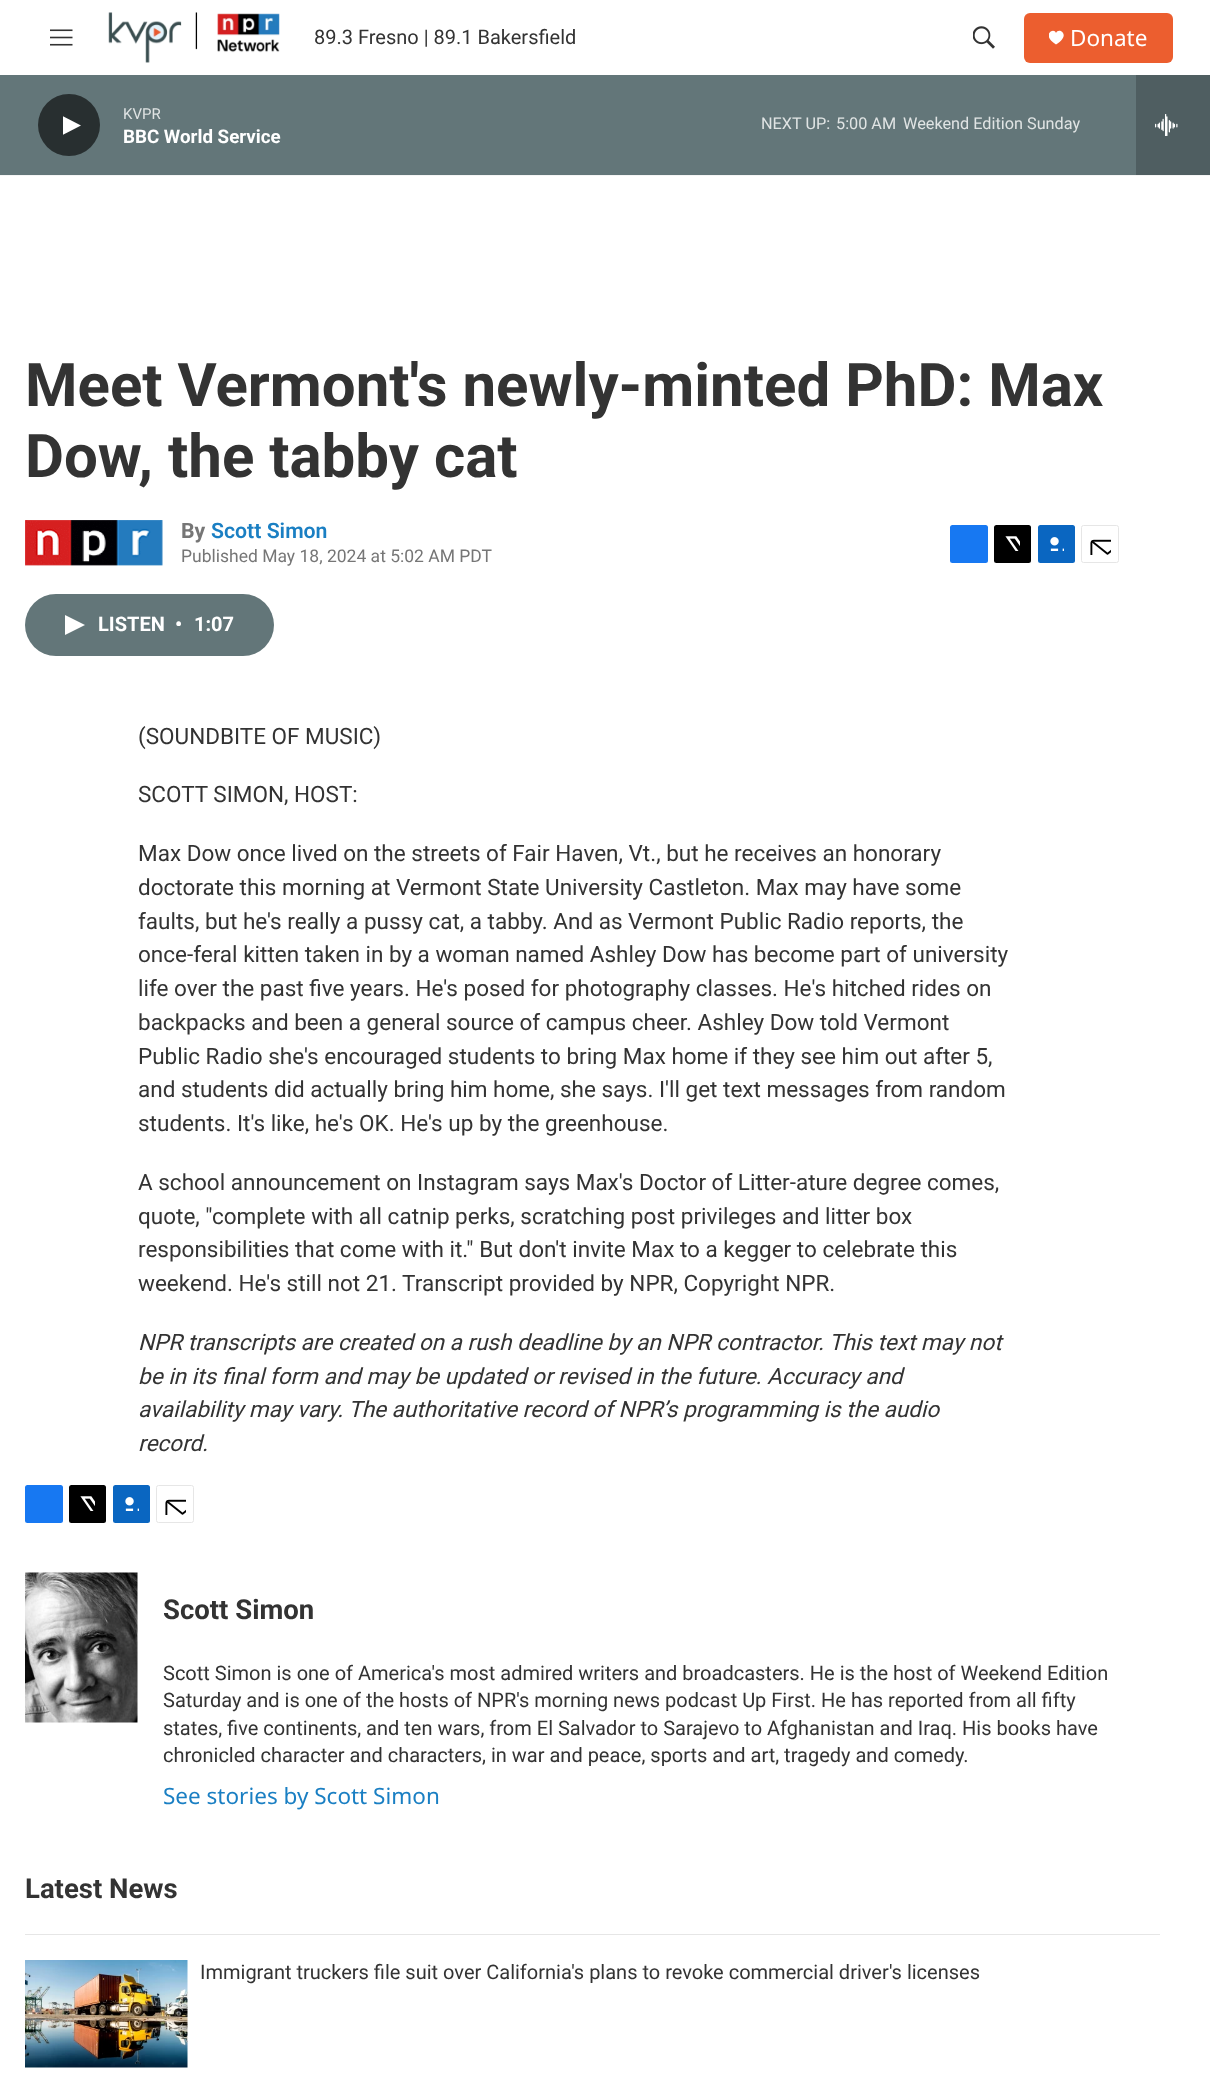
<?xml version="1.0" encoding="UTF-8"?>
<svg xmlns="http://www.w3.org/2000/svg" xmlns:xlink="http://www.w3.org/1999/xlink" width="1210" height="2080">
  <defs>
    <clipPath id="clip1"><rect x="1049" y="30" width="15" height="15" /></clipPath>
    <clipPath id="clip2"><rect x="63" y="114" width="18" height="24" /></clipPath>
  </defs>
  <rect width="100%" height="100%" fill="#ffffff" />
  <rect y="175" width="1210" height="1" fill="#f5f5f5" />
  <image x="50" y="29" width="23" height="17" xlink:href="image1.png" />
  <image x="108" y="12" width="172" height="51" xlink:href="image2.png" />
  <image x="973" y="26" width="22" height="23" xlink:href="image3.png" />
  <rect x="1024" y="13" width="149" height="50" rx="6" fill="#ec5e2f" />
  <g clip-path="url(#clip1)">
    <path d="M 1056 33 c -2 -6.5 -15.5 2 0 11.5 c 16 -9.5 2.5 -18 0 -11.5 z" fill="#ffffff" />
  </g>
  <rect y="75" width="1136" height="100" fill="#637679" />
  <circle cx="69" cy="125" r="31" fill="#282f30" />
  <g clip-path="url(#clip2)">
    <path d="M 62.5 116 l 18.5 9.5 l -18.5 9.5 z" fill="#ffffff" />
  </g>
  <rect x="1136" y="75" width="74" height="100" fill="#4f5e61" />
  <image x="1155" y="114" width="23" height="22" xlink:href="image4.png" />
  <image x="25" y="520" width="138" height="46" xlink:href="image5.png" />
  <rect x="950" y="525" width="38" height="38" rx="2.5" fill="#1778f2" />
  <rect x="994" y="525" width="37" height="38" rx="2.5" fill="#000000" />
  <image x="1005" y="536" width="15" height="15" xlink:href="image6.png" />
  <rect x="1038" y="525" width="37" height="38" rx="2.5" fill="#0a66c1" />
  <image x="1050" y="537" width="14" height="14" xlink:href="image7.png" />
  <rect x="1081.5" y="525.5" width="37" height="37" rx="2" fill="none" stroke="#e6e6e6" />
  <image x="1090" y="539" width="21" height="16" xlink:href="image8.png" />
  <rect x="25" y="594" width="249" height="62" rx="31" fill="#637679" />
  <path d="M 65 615 l 20 10 l -20 10 z" fill="#ffffff" />
  <rect x="25" y="1485" width="38" height="38" rx="2.5" fill="#1778f2" />
  <rect x="69" y="1485" width="37" height="38" rx="2.5" fill="#000000" />
  <image x="80" y="1496" width="15" height="15" xlink:href="image6.png" />
  <rect x="113" y="1485" width="37" height="38" rx="2.5" fill="#0a66c1" />
  <image x="125" y="1497" width="14" height="14" xlink:href="image7.png" />
  <rect x="156.5" y="1485.5" width="37" height="37" rx="2" fill="none" stroke="#e6e6e6" />
  <image x="165" y="1499" width="21" height="16" xlink:href="image8.png" />
  <image x="25" y="1572" width="113" height="151" xlink:href="image9.png" />
  <rect x="25" y="1934" width="1135" height="1" fill="#e6e6e6" />
  <image x="25" y="1960" width="163" height="108" xlink:href="image10.png" />
  <text x="314" y="44" style="font-family: 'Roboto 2'; font-size: 20px; fill: #333333">89.3 Fresno | 89.1 Bakersfield</text>
  <text x="1070" y="46" style="font-family: Noto Sans; font-size: 22.5px; fill: #ffffff">Donate</text>
  <text x="123" y="119" style="font-family: 'Roboto 2'; font-size: 15px; fill: #e0e4e4">KVPR</text>
  <text x="123" y="143" style="font-family: 'Roboto 2'; font-size: 18.75px; font-weight: bold; fill: #ffffff">BBC World Service</text>
  <text x="761" y="129" style="font-family: 'Roboto 2'; font-size: 16.25px; fill: #e0e4e4">NEXT UP:</text>
  <text x="836" y="129" style="font-family: 'Roboto 2'; font-size: 16.25px; fill: #e0e4e4">5:00 AM</text>
  <text x="903" y="129" style="font-family: 'Roboto 2'; font-size: 16.25px; fill: #e0e4e4">Weekend Edition Sunday</text>
  <text x="25" y="406" style="font-family: Roboto; font-size: 60px; font-weight: bold; fill: #333333">Meet Vermont's newly-minted PhD: Max</text>
  <text x="25" y="477" style="font-family: Roboto; font-size: 60px; font-weight: bold; fill: #333333">Dow, the tabby cat</text>
  <text x="181" y="538" style="font-family: Roboto; font-size: 21.25px; font-weight: bold; fill: #767676">By</text>
  <text x="211" y="538" style="font-family: Roboto; font-size: 21.25px; font-weight: 600; fill: #1a7fc3">Scott Simon</text>
  <text x="181" y="562" style="font-family: Roboto; font-size: 17.5px; fill: #767676">Published May 18, 2024 at 5:02 AM PDT</text>
  <text x="98" y="631" style="font-family: 'Roboto 2'; font-size: 20px; font-weight: bold; fill: #ffffff">LISTEN</text>
  <text x="175" y="631" style="font-family: 'Roboto 2'; font-size: 20px; font-weight: bold; fill: #ffffff">•</text>
  <text x="194" y="631" style="font-family: 'Roboto 2'; font-size: 20px; font-weight: bold; fill: #ffffff">1:07</text>
  <text x="138" y="744" style="font-family: 'Roboto 2'; font-size: 22.5px; fill: #333333">(SOUNDBITE OF MUSIC)</text>
  <text x="138" y="802" style="font-family: 'Roboto 2'; font-size: 22.5px; fill: #333333">SCOTT SIMON, HOST:</text>
  <text x="138" y="861" style="font-family: 'Roboto 2'; font-size: 22.5px; fill: #333333">Max Dow once lived on the streets of Fair Haven, Vt., but he receives an honorary</text>
  <text x="138" y="895" style="font-family: 'Roboto 2'; font-size: 22.5px; fill: #333333">doctorate this morning at Vermont State University Castleton. Max may have some</text>
  <text x="138" y="929" style="font-family: 'Roboto 2'; font-size: 22.5px; fill: #333333">faults, but he's really a pussy cat, a tabby. And as Vermont Public Radio reports, the</text>
  <text x="138" y="962" style="font-family: 'Roboto 2'; font-size: 22.5px; fill: #333333">once-feral kitten taken in by a woman named Ashley Dow has become part of university</text>
  <text x="138" y="996" style="font-family: 'Roboto 2'; font-size: 22.5px; fill: #333333">life over the past five years. He's posed for photography classes. He's hitched rides on</text>
  <text x="138" y="1030" style="font-family: 'Roboto 2'; font-size: 22.5px; fill: #333333">backpacks and been a general source of campus cheer. Ashley Dow told Vermont</text>
  <text x="138" y="1064" style="font-family: 'Roboto 2'; font-size: 22.5px; fill: #333333">Public Radio she's encouraged students to bring Max home if they see him out after 5,</text>
  <text x="138" y="1097" style="font-family: 'Roboto 2'; font-size: 22.5px; fill: #333333">and students did actually bring him home, she says. I'll get text messages from random</text>
  <text x="138" y="1131" style="font-family: 'Roboto 2'; font-size: 22.5px; fill: #333333">students. It's like, he's OK. He's up by the greenhouse.</text>
  <text x="138" y="1190" style="font-family: 'Roboto 2'; font-size: 22.5px; fill: #333333">A school announcement on Instagram says Max's Doctor of Litter-ature degree comes,</text>
  <text x="138" y="1224" style="font-family: 'Roboto 2'; font-size: 22.5px; fill: #333333">quote, "complete with all catnip perks, scratching post privileges and litter box</text>
  <text x="138" y="1257" style="font-family: 'Roboto 2'; font-size: 22.5px; fill: #333333">responsibilities that come with it." But don't invite Max to a kegger to celebrate this</text>
  <text x="138" y="1291" style="font-family: 'Roboto 2'; font-size: 22.5px; fill: #333333">weekend. He's still not 21. Transcript provided by NPR, Copyright NPR.</text>
  <text x="138" y="1350" style="font-family: Roboto; font-size: 22.5px; font-style: italic; fill: #333333">NPR transcripts are created on a rush deadline by an NPR contractor. This text may not</text>
  <text x="138" y="1384" style="font-family: Roboto; font-size: 22.5px; font-style: italic; fill: #333333">be in its final form and may be updated or revised in the future. Accuracy and</text>
  <text x="138" y="1417" style="font-family: Roboto; font-size: 22.5px; font-style: italic; fill: #333333">availability may vary. The authoritative record of NPR’s programming is the audio</text>
  <text x="138" y="1451" style="font-family: Roboto; font-size: 22.5px; font-style: italic; fill: #333333">record.</text>
  <text x="163" y="1619" style="font-family: Roboto; font-size: 27.5px; font-weight: bold; fill: #333333">Scott Simon</text>
  <text x="163" y="1680" style="font-family: 'Roboto 2'; font-size: 20px; fill: #333333">Scott Simon is one of America's most admired writers and broadcasters. He is the host of Weekend Edition</text>
  <text x="163" y="1707" style="font-family: 'Roboto 2'; font-size: 20px; fill: #333333">Saturday and is one of the hosts of NPR's morning news podcast Up First. He has reported from all fifty</text>
  <text x="163" y="1735" style="font-family: 'Roboto 2'; font-size: 20px; fill: #333333">states, five continents, and ten wars, from El Salvador to Sarajevo to Afghanistan and Iraq. His books have</text>
  <text x="163" y="1762" style="font-family: 'Roboto 2'; font-size: 20px; fill: #333333">chronicled character and characters, in war and peace, sports and art, tragedy and comedy.</text>
  <text x="163" y="1804" style="font-family: Noto Sans; font-size: 22.5px; fill: #1a7fc3">See stories by Scott Simon</text>
  <text x="25" y="1898" style="font-family: Roboto; font-size: 27.5px; font-weight: bold; fill: #333333">Latest News</text>
  <text x="200" y="1979" style="font-family: 'Roboto 2'; font-size: 20px; fill: #333333">Immigrant truckers file suit over California's plans to revoke commercial driver's licenses</text>
</svg>
